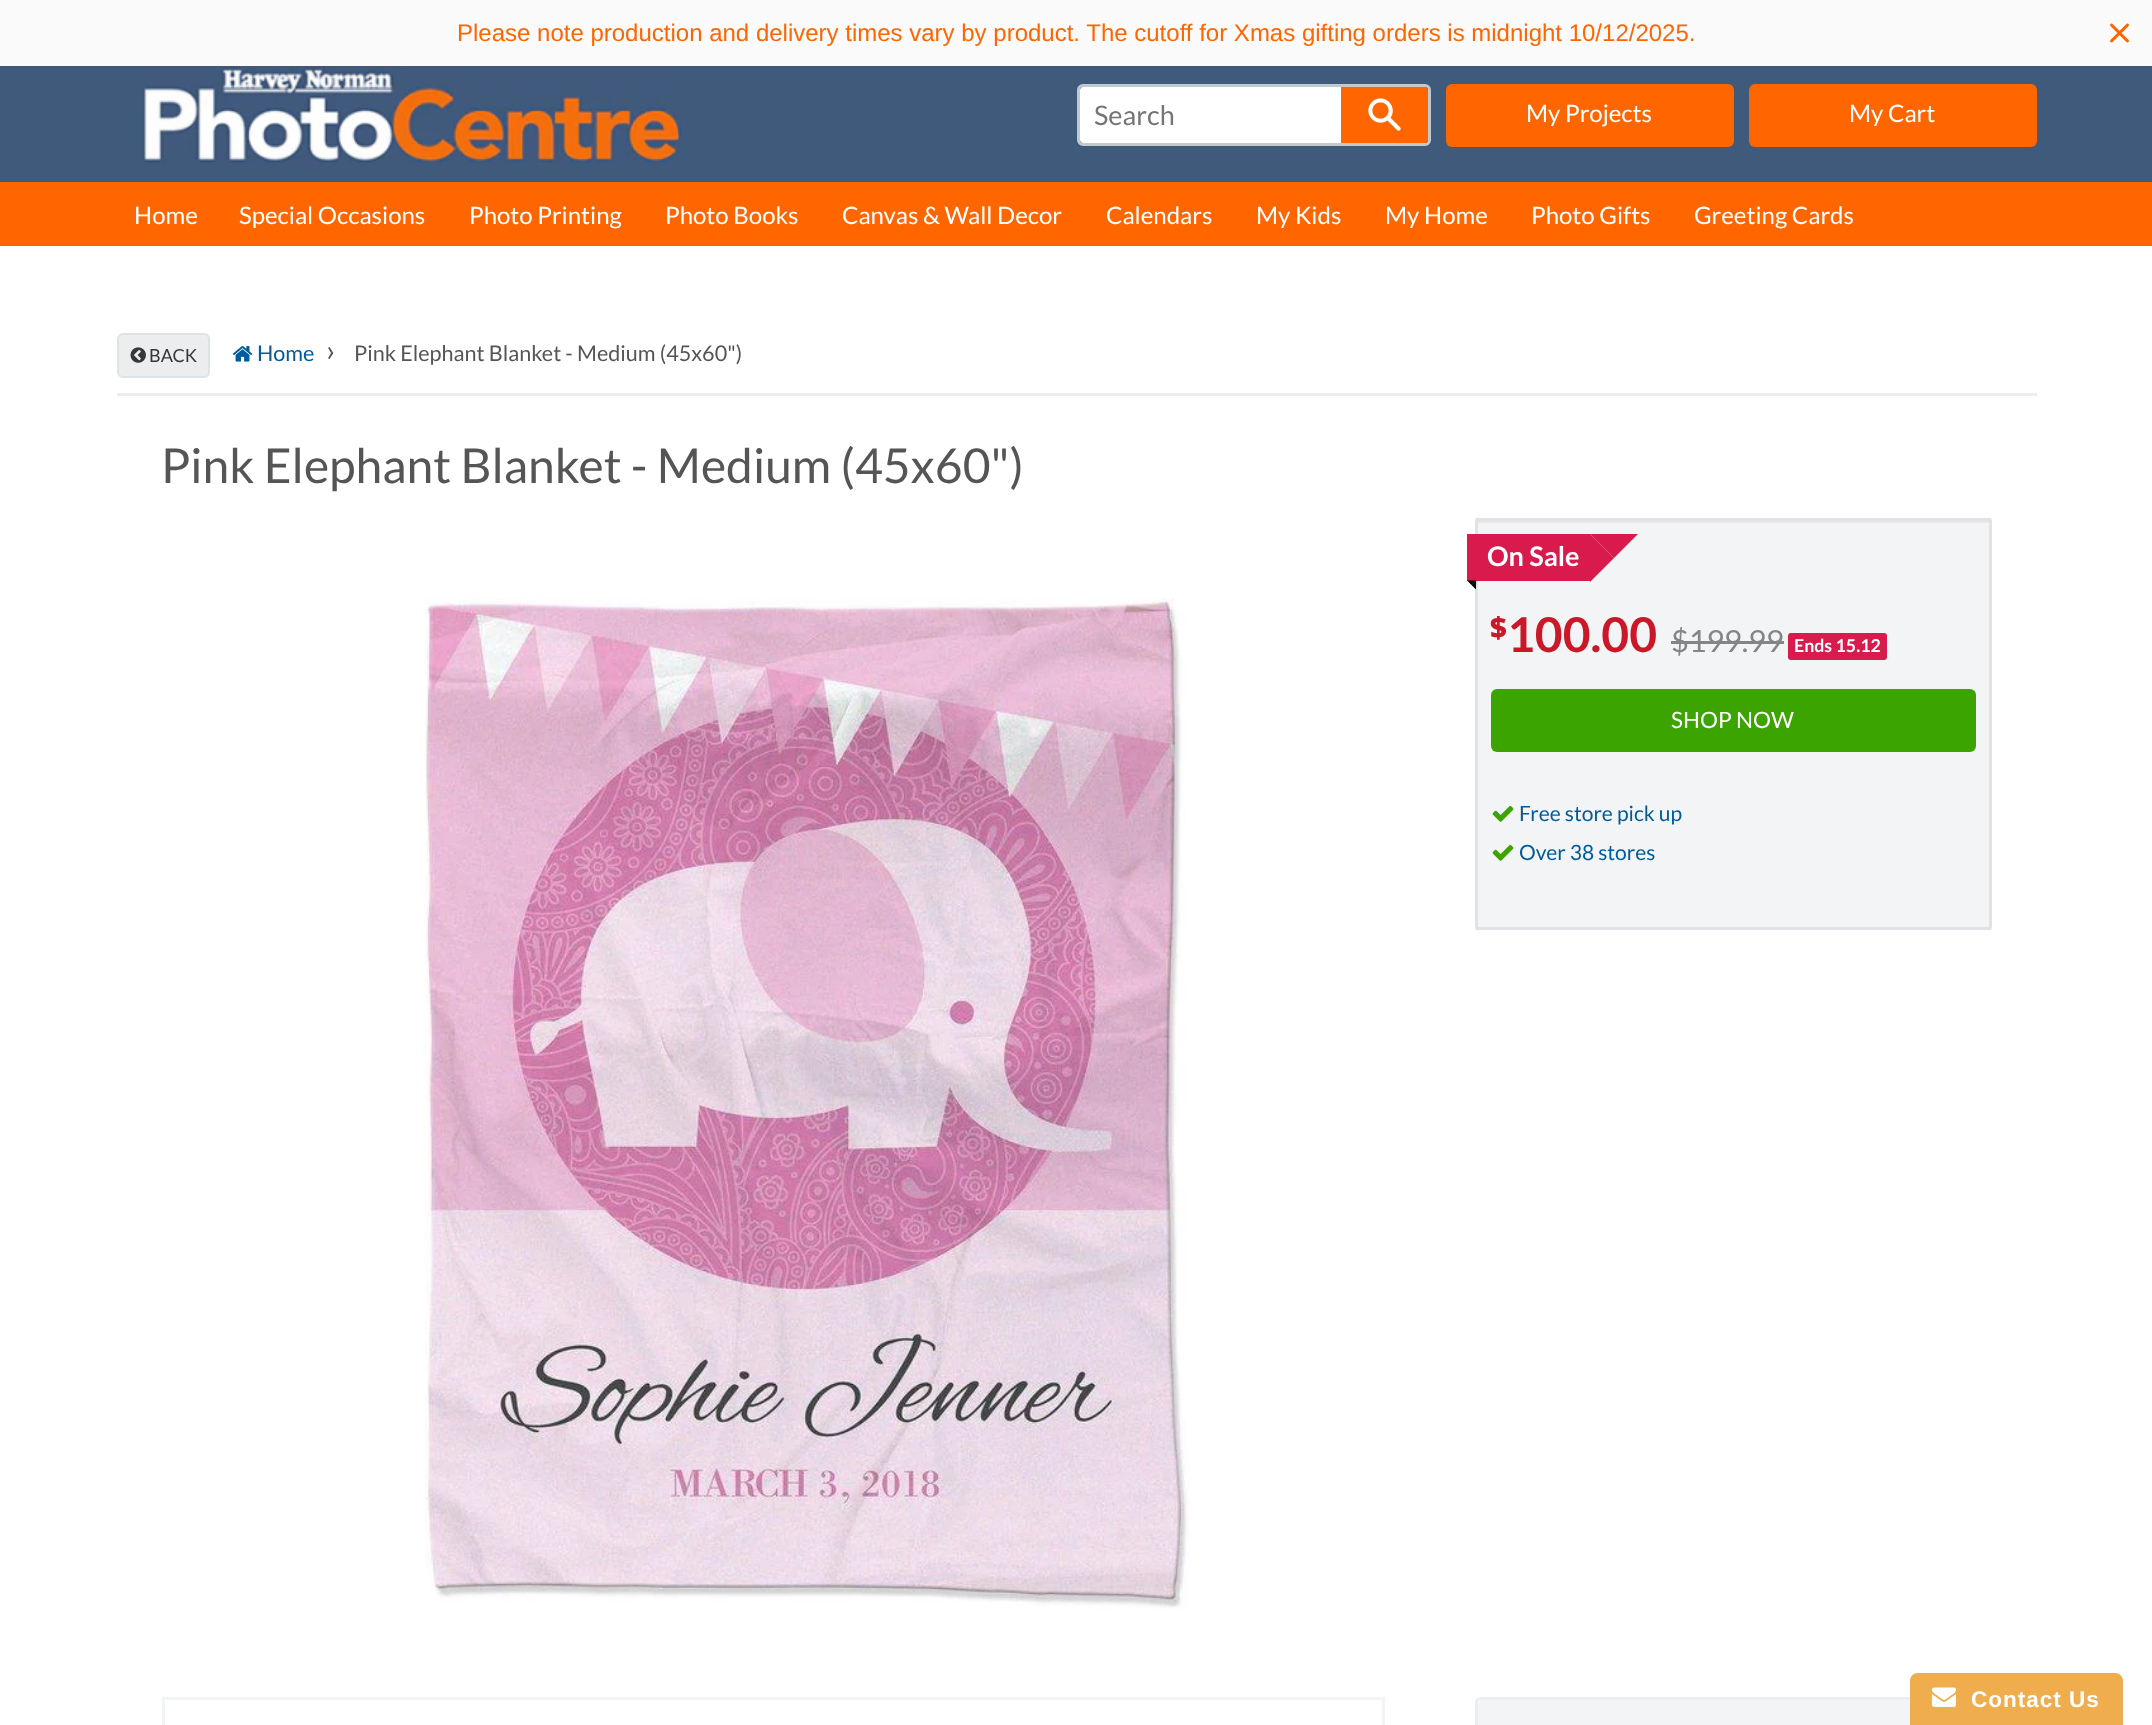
<?xml version="1.0" encoding="UTF-8"?>
<svg xmlns="http://www.w3.org/2000/svg" xmlns:xlink="http://www.w3.org/1999/xlink" width="2152" height="1725">
  <rect width="100%" height="100%" fill="#ffffff" />
  <rect width="2152" height="66" fill="#fafafa" />
  <image x="2110" y="23" width="19" height="20" xlink:href="image1.png" />
  <rect y="66" width="2152" height="116" fill="#405a7c" />
  <image x="141" y="66" width="541" height="99" xlink:href="image2.png" />
  <rect x="1078.5" y="85.5" width="351" height="59" rx="4.5" fill="none" stroke="#c0cbd0" stroke-width="3" />
  <path d="M 1083 87 h 258 v 56 h -258 c -1.5 0 -3 -1.5 -3 -3 v -50 c 0 -1.5 1.5 -3 3 -3 z" fill="#ffffff" />
  <path d="M 1341 87 h 84 c 1.5 0 3 1.5 3 3 v 50 c 0 1.5 -1.5 3 -3 3 h -84 z" fill="#ff6600" />
  <image x="1368" y="98" width="33" height="33" xlink:href="image3.png" />
  <rect x="1446" y="84" width="288" height="63" rx="6" fill="#ff6600" />
  <rect x="1749" y="84" width="288" height="63" rx="6" fill="#ff6600" />
  <rect y="182" width="2152" height="64" fill="#ff6600" />
  <rect x="117" y="393" width="1920" height="3" fill="#ebedee" />
  <rect x="118" y="334" width="91" height="43" rx="5" fill="#ebedee" stroke="#dde3e6" stroke-width="2" />
  <image x="130" y="347" width="16" height="16" xlink:href="image4.png" />
  <image x="232" y="346" width="21" height="16" xlink:href="image5.png" />
  <image x="425" y="598" width="765" height="1011" xlink:href="image6.png" />
  <rect x="1475" y="518" width="517" height="412" rx="3" fill="#f3f4f5" />
  <rect x="1478" y="521" width="511" height="2" fill="#e7e8e9" />
  <rect x="1476.5" y="519.5" width="514" height="409" rx="1.5" fill="none" stroke="#e0e2e5" stroke-width="3" />
  <rect x="1467" y="534" width="123" height="47" fill="#d91a4c" />
  <path d="M 1590 534 h 48 l -24 24 z" fill="#d91a4c" />
  <path d="M 1590 582 v -48 l 24 24 z" fill="#d91a4c" />
  <path d="M 1467 580.5 h 9 l -4.5 4.5 z" fill="#000000" />
  <path d="M 1476 580.5 v 9 l -4.5 -4.5 z" fill="#000000" />
  <rect x="1671" y="641" width="113" height="3" fill="#848585" />
  <rect x="1788" y="633" width="99" height="27" rx="3" fill="#d91a4c" />
  <rect x="1491" y="689" width="485" height="63" rx="6" fill="#3ca400" />
  <image x="1492" y="805" width="22" height="17" xlink:href="image7.png" />
  <image x="1492" y="844" width="22" height="17" xlink:href="image7.png" />
  <rect x="163.5" y="1698.5" width="1220" height="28" fill="none" stroke="#f3f4f5" stroke-width="3" />
  <rect x="1476.5" y="1698.5" width="514" height="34" rx="4.5" fill="none" stroke="#ebedee" stroke-width="3" />
  <path d="M 1483 1700 h 503 c 3 0 5 2 5 5 v 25 h -513 v -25 c 0 -3 2 -5 5 -5 z" fill="#f3f4f5" />
  <path d="M 1918 1673 h 197 c 4.5 0 8 3.5 8 8 v 44 h -213 v -44 c 0 -4.5 3.5 -8 8 -8 z" fill="#f0ad4e" />
  <image x="1931" y="1687" width="25" height="20" xlink:href="image8.png" />
  <text x="457" y="41" style="font-family: Liberation Sans; font-size: 24px; fill: #fe6600">Please note production and delivery times vary by product. The cutoff for Xmas gifting orders is midnight 10/12/2025.</text>
  <text x="1094" y="125" style="font-family: Lato; font-size: 27px; fill: #757575">Search</text>
  <text x="1526" y="122" style="font-family: Lato; font-size: 24px; fill: #ffffff">My Projects</text>
  <text x="1849" y="122" style="font-family: Lato; font-size: 24px; fill: #ffffff">My Cart</text>
  <text x="134" y="224" style="font-family: Lato; font-size: 24px; fill: #ffffff">Home</text>
  <text x="239" y="224" style="font-family: Lato; font-size: 24px; fill: #ffffff">Special Occasions</text>
  <text x="469" y="224" style="font-family: Lato; font-size: 24px; fill: #ffffff">Photo Printing</text>
  <text x="665" y="224" style="font-family: Lato; font-size: 24px; fill: #ffffff">Photo Books</text>
  <text x="842" y="224" style="font-family: Lato; font-size: 24px; fill: #ffffff">Canvas &amp; Wall Decor</text>
  <text x="1106" y="224" style="font-family: Lato; font-size: 24px; fill: #ffffff">Calendars</text>
  <text x="1256" y="224" style="font-family: Lato; font-size: 24px; fill: #ffffff">My Kids</text>
  <text x="1385" y="224" style="font-family: Lato; font-size: 24px; fill: #ffffff">My Home</text>
  <text x="1531" y="224" style="font-family: Lato; font-size: 24px; fill: #ffffff">Photo Gifts</text>
  <text x="1694" y="224" style="font-family: Lato; font-size: 24px; fill: #ffffff">Greeting Cards</text>
  <text x="149" y="362" style="font-family: Lato; font-size: 18px; fill: #373737">BACK</text>
  <text x="257" y="361" style="font-family: Lato; font-size: 21.6px; fill: #005b9c">Home</text>
  <text x="326" y="361" style="font-family: Lato; font-size: 30px; fill: #555555">›</text>
  <text x="354" y="361" style="font-family: Lato; font-size: 21.6px; fill: #555555">Pink Elephant Blanket - Medium (45x60")</text>
  <text x="161" y="483" style="font-family: Lato; font-size: 48px; fill: #555555">Pink Elephant Blanket - Medium (45x60")</text>
  <text x="1487" y="566" style="font-family: Lato; font-size: 27px; font-weight: bold; fill: #ffffff">On Sale</text>
  <text x="1490" y="638" style="font-family: Noto Sans; font-size: 29px; font-weight: 900; fill: #cb1829">$</text>
  <text x="1507" y="652" style="font-family: Lato; font-size: 48px; font-weight: bold; fill: #cb1829">100.00</text>
  <text x="1671" y="652" style="font-family: Lato; font-size: 30.5px; fill: #848585">$199.99</text>
  <text x="1794" y="652" style="font-family: Lato; font-size: 17.75px; font-weight: bold; fill: #ffffff">Ends 15.12</text>
  <text x="1671" y="728" style="font-family: Lato; font-size: 22.5px; fill: #ffffff">SHOP NOW</text>
  <text x="1519" y="821" style="font-family: Lato; font-size: 21px; fill: #005b9c">Free store pick up</text>
  <text x="1519" y="860" style="font-family: Lato; font-size: 21px; fill: #005b9c">Over 38 stores</text>
  <text x="1971" y="1707" style="font-family: Liberation Sans; font-size: 22.5px; font-weight: bold; letter-spacing: 1px; fill: #ffffff">Contact Us</text>
</svg>
